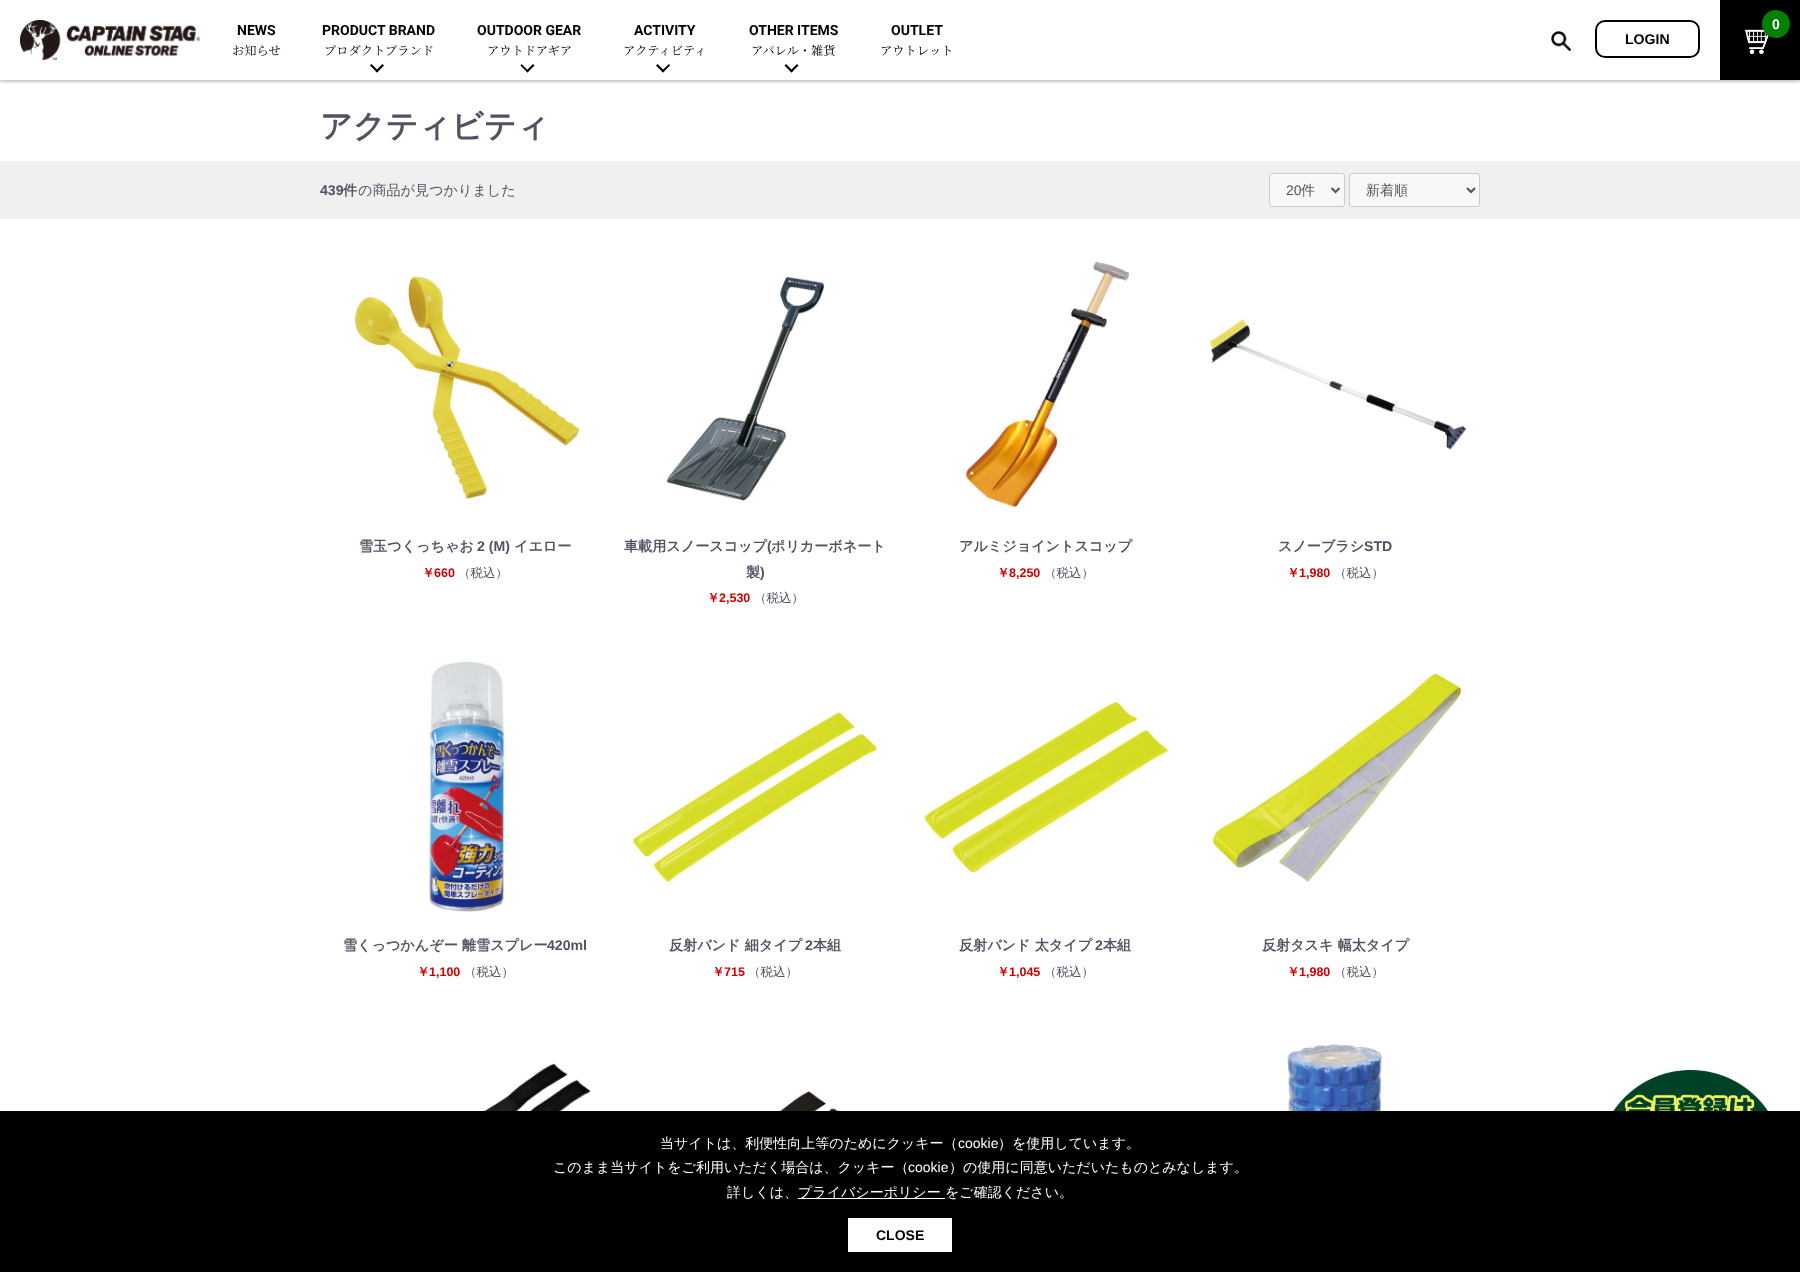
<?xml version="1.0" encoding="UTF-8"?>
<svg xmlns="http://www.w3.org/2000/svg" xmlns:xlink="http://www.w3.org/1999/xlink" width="1800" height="1272">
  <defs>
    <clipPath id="clip1"><rect x="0" y="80" width="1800" height="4" /></clipPath>
  </defs>
  <rect width="100%" height="100%" fill="#ffffff" />
  <g clip-path="url(#clip1)">
    <rect width="1800" height="80" fill="#000000" fill-opacity="0.5" filter="blur(2.5px)" />
  </g>
  <image x="20" y="20" width="180" height="40" xlink:href="image1.png" />
  <path d="M 382.5 64 l 1.5 1.5 l -7 7 l -1.5 -1.5 z" fill="#000000" />
  <path d="M 371.5 64 l 7 7 l -1.5 1.5 l -7 -7 z" fill="#000000" />
  <path d="M 533 64 l 1.5 1.5 l -7 7 l -1.5 -1.5 z" fill="#000000" />
  <path d="M 521.5 64 l 7 7 l -1 1.5 l -7 -7 z" fill="#000000" />
  <path d="M 669 64 l 1 1.5 l -7 7 l -1.5 -1.5 z" fill="#000000" />
  <path d="M 657.5 64 l 7 7 l -1.5 1.5 l -7 -7 z" fill="#000000" />
  <path d="M 797 64 l 1.5 1.5 l -7 7 l -1.5 -1.5 z" fill="#000000" />
  <path d="M 786 64 l 7 7 l -1.5 1.5 l -7 -7 z" fill="#000000" />
  <image x="1551" y="31" width="20" height="20" xlink:href="image2.png" />
  <rect x="1596" y="21" width="103" height="36" rx="9" fill="none" stroke="#000000" stroke-width="2" />
  <rect x="1720" width="80" height="80" fill="#000000" />
  <image x="1745" y="29" width="24" height="25" xlink:href="image3.png" />
  <circle cx="1776" cy="24" r="14" fill="#008000" />
  <image x="1613" y="1070" width="155" height="41" xlink:href="image4.png" />
  <rect y="161" width="1800" height="58" fill="#f0f0f0" />
  <rect x="1269.5" y="173.5" width="75" height="33" rx="2.5" fill="#f8f8f8" stroke="#cccccc" />
  <path d="M 1331.5 188 l 4 4 l 4 -4" fill="none" stroke="#555555" stroke-width="2" />
  <rect x="1349.5" y="173.5" width="130" height="33" rx="2.5" fill="#f8f8f8" stroke="#cccccc" />
  <path d="M 1467 188 l 4 4 l 4 -4" fill="none" stroke="#555555" stroke-width="2" />
  <image x="354" y="275" width="225" height="226" xlink:href="image5.png" />
  <image x="665" y="276" width="160" height="225" xlink:href="image6.png" />
  <image x="964" y="261" width="165" height="247" xlink:href="image7.png" />
  <image x="1209" y="319" width="258" height="131" xlink:href="image8.png" />
  <image x="429" y="661" width="76" height="252" xlink:href="image9.png" />
  <image x="630" y="711" width="248" height="174" xlink:href="image10.png" />
  <image x="923" y="700" width="246" height="174" xlink:href="image11.png" />
  <image x="1211" y="671" width="251" height="211" xlink:href="image12.png" />
  <image x="340" y="1063" width="251" height="48" xlink:href="image13.png" />
  <image x="650" y="1091" width="203" height="20" xlink:href="image14.png" />
  <image x="1287" y="1044" width="95" height="67" xlink:href="image15.png" />
  <rect y="1111" width="1800" height="161" fill="#000000" />
  <rect x="798" y="1198" width="147" height="1" fill="#ffffff" />
  <rect x="848" y="1218" width="104" height="34" fill="#ffffff" />
  <text x="237" y="35" style="font-family: Roboto; font-size: 14px; font-weight: bold; fill: #000000">NEWS</text>
  <text x="232" y="55" style="font-family: Noto Serif JP; font-size: 12.25px; fill: #000000">お知らせ</text>
  <text x="322" y="35" style="font-family: Roboto; font-size: 14px; font-weight: bold; fill: #000000">PRODUCT BRAND</text>
  <text x="324" y="55" style="font-family: Noto Serif JP; font-size: 12.25px; fill: #000000">プロダクトブランド</text>
  <text x="477" y="35" style="font-family: Roboto; font-size: 14px; font-weight: bold; fill: #000000">OUTDOOR GEAR</text>
  <text x="487" y="55" style="font-family: Noto Serif JP; font-size: 12.25px; fill: #000000">アウトドアギア</text>
  <text x="634" y="35" style="font-family: Roboto; font-size: 14px; font-weight: bold; fill: #000000">ACTIVITY</text>
  <text x="623" y="55" style="font-family: Noto Serif JP; font-size: 12.25px; fill: #000000">アクティビティ</text>
  <text x="749" y="35" style="font-family: Roboto; font-size: 14px; font-weight: bold; fill: #000000">OTHER ITEMS</text>
  <text x="751" y="55" style="font-family: Noto Serif JP; font-size: 12.25px; fill: #000000">アパレル・雑貨</text>
  <text x="891" y="35" style="font-family: Roboto; font-size: 14px; font-weight: bold; fill: #000000">OUTLET</text>
  <text x="880" y="55" style="font-family: Noto Serif JP; font-size: 12.25px; fill: #000000">アウトレット</text>
  <text x="1625" y="44" style="font-family: Liberation Sans; font-size: 14.1px; font-weight: bold; fill: #000000">LOGIN</text>
  <text x="1772" y="29" style="font-family: Liberation Sans; font-size: 14px; font-weight: bold; fill: #ffffff">0</text>
  <text x="320" y="137" style="font-family: WenQuanYi Zen Hei; font-size: 32px; font-weight: bold; fill: #525263">アクティビティ</text>
  <text x="320" y="195" style="font-family: Liberation Sans; font-size: 14.1px; font-weight: bold; fill: #525263">439</text>
  <text x="343" y="195" style="font-family: WenQuanYi Zen Hei; font-size: 14.1px; font-weight: bold; fill: #525263">件</text>
  <text x="358" y="195" style="font-family: WenQuanYi Zen Hei; font-size: 14.1px; font-weight: 500; fill: #525263">の商品が見つかりました</text>
  <text x="1286" y="195" style="font-family: Liberation Sans; font-size: 14px; fill: #555555">20</text>
  <text x="1301" y="195" style="font-family: WenQuanYi Zen Hei; font-size: 14px; font-weight: 500; fill: #555555">件</text>
  <text x="1366" y="195" style="font-family: WenQuanYi Zen Hei; font-size: 14px; font-weight: 500; fill: #555555">新着順</text>
  <text x="359" y="551" style="font-family: WenQuanYi Zen Hei; font-size: 14.1px; font-weight: bold; fill: #525263">雪玉つくっちゃお</text>
  <text x="477" y="551" style="font-family: Liberation Sans; font-size: 14.1px; font-weight: bold; fill: #525263">2 (M)</text>
  <text x="514" y="551" style="font-family: WenQuanYi Zen Hei; font-size: 14.1px; font-weight: bold; fill: #525263">イエロー</text>
  <text x="422" y="577" style="font-family: WenQuanYi Zen Hei; font-size: 12.5px; font-weight: bold; fill: #cc0000">￥</text>
  <text x="434" y="577" style="font-family: Liberation Sans; font-size: 12.5px; font-weight: bold; fill: #cc0000">660</text>
  <text x="458" y="577" style="font-family: WenQuanYi Zen Hei; font-size: 12.5px; font-weight: 500; fill: #525263">（税込）</text>
  <text x="624" y="551" style="font-family: WenQuanYi Zen Hei; font-size: 14.1px; font-weight: bold; fill: #525263">車載用スノースコップ</text>
  <text x="767" y="551" style="font-family: Liberation Sans; font-size: 14.1px; font-weight: bold; fill: #525263">(</text>
  <text x="771" y="551" style="font-family: WenQuanYi Zen Hei; font-size: 14.1px; font-weight: bold; fill: #525263">ポリカーボネート</text>
  <text x="746" y="577" style="font-family: WenQuanYi Zen Hei; font-size: 14.1px; font-weight: bold; fill: #525263">製</text>
  <text x="760" y="577" style="font-family: Liberation Sans; font-size: 14.1px; font-weight: bold; fill: #525263">)</text>
  <text x="707" y="602" style="font-family: WenQuanYi Zen Hei; font-size: 12.5px; font-weight: bold; fill: #cc0000">￥</text>
  <text x="719" y="602" style="font-family: Liberation Sans; font-size: 12.5px; font-weight: bold; fill: #cc0000">2,530</text>
  <text x="754" y="602" style="font-family: WenQuanYi Zen Hei; font-size: 12.5px; font-weight: 500; fill: #525263">（税込）</text>
  <text x="959" y="551" style="font-family: WenQuanYi Zen Hei; font-size: 14.1px; font-weight: bold; fill: #525263">アルミジョイントスコップ</text>
  <text x="997" y="577" style="font-family: WenQuanYi Zen Hei; font-size: 12.5px; font-weight: bold; fill: #cc0000">￥</text>
  <text x="1009" y="577" style="font-family: Liberation Sans; font-size: 12.5px; font-weight: bold; fill: #cc0000">8,250</text>
  <text x="1044" y="577" style="font-family: WenQuanYi Zen Hei; font-size: 12.5px; font-weight: 500; fill: #525263">（税込）</text>
  <text x="1278" y="551" style="font-family: WenQuanYi Zen Hei; font-size: 14.1px; font-weight: bold; fill: #525263">スノーブラシ</text>
  <text x="1364" y="551" style="font-family: Liberation Sans; font-size: 14.1px; font-weight: bold; fill: #525263">STD</text>
  <text x="1287" y="577" style="font-family: WenQuanYi Zen Hei; font-size: 12.5px; font-weight: bold; fill: #cc0000">￥</text>
  <text x="1299" y="577" style="font-family: Liberation Sans; font-size: 12.5px; font-weight: bold; fill: #cc0000">1,980</text>
  <text x="1334" y="577" style="font-family: WenQuanYi Zen Hei; font-size: 12.5px; font-weight: 500; fill: #525263">（税込）</text>
  <text x="343" y="950" style="font-family: WenQuanYi Zen Hei; font-size: 14.1px; font-weight: bold; fill: #525263">雪くっつかんぞー 離雪スプレー</text>
  <text x="547" y="950" style="font-family: Liberation Sans; font-size: 14.1px; font-weight: bold; fill: #525263">420ml</text>
  <text x="417" y="976" style="font-family: WenQuanYi Zen Hei; font-size: 12.5px; font-weight: bold; fill: #cc0000">￥</text>
  <text x="429" y="976" style="font-family: Liberation Sans; font-size: 12.5px; font-weight: bold; fill: #cc0000">1,100</text>
  <text x="464" y="976" style="font-family: WenQuanYi Zen Hei; font-size: 12.5px; font-weight: 500; fill: #525263">（税込）</text>
  <text x="669" y="950" style="font-family: WenQuanYi Zen Hei; font-size: 14.1px; font-weight: bold; fill: #525263">反射バンド 細タイプ</text>
  <text x="805" y="950" style="font-family: Liberation Sans; font-size: 14.1px; font-weight: bold; fill: #525263">2</text>
  <text x="813" y="950" style="font-family: WenQuanYi Zen Hei; font-size: 14.1px; font-weight: bold; fill: #525263">本組</text>
  <text x="712" y="976" style="font-family: WenQuanYi Zen Hei; font-size: 12.5px; font-weight: bold; fill: #cc0000">￥</text>
  <text x="724" y="976" style="font-family: Liberation Sans; font-size: 12.5px; font-weight: bold; fill: #cc0000">715</text>
  <text x="748" y="976" style="font-family: WenQuanYi Zen Hei; font-size: 12.5px; font-weight: 500; fill: #525263">（税込）</text>
  <text x="959" y="950" style="font-family: WenQuanYi Zen Hei; font-size: 14.1px; font-weight: bold; fill: #525263">反射バンド 太タイプ</text>
  <text x="1095" y="950" style="font-family: Liberation Sans; font-size: 14.1px; font-weight: bold; fill: #525263">2</text>
  <text x="1103" y="950" style="font-family: WenQuanYi Zen Hei; font-size: 14.1px; font-weight: bold; fill: #525263">本組</text>
  <text x="997" y="976" style="font-family: WenQuanYi Zen Hei; font-size: 12.5px; font-weight: bold; fill: #cc0000">￥</text>
  <text x="1009" y="976" style="font-family: Liberation Sans; font-size: 12.5px; font-weight: bold; fill: #cc0000">1,045</text>
  <text x="1044" y="976" style="font-family: WenQuanYi Zen Hei; font-size: 12.5px; font-weight: 500; fill: #525263">（税込）</text>
  <text x="1262" y="950" style="font-family: WenQuanYi Zen Hei; font-size: 14.1px; font-weight: bold; fill: #525263">反射タスキ 幅太タイプ</text>
  <text x="1287" y="976" style="font-family: WenQuanYi Zen Hei; font-size: 12.5px; font-weight: bold; fill: #cc0000">￥</text>
  <text x="1299" y="976" style="font-family: Liberation Sans; font-size: 12.5px; font-weight: bold; fill: #cc0000">1,980</text>
  <text x="1334" y="976" style="font-family: WenQuanYi Zen Hei; font-size: 12.5px; font-weight: 500; fill: #525263">（税込）</text>
  <text x="660" y="1148" style="font-family: WenQuanYi Zen Hei; font-size: 14px; font-weight: 500; fill: #ffffff">当サイトは、利便性向上等のためにクッキー（</text>
  <text x="958" y="1148" style="font-family: Liberation Sans; font-size: 14px; fill: #ffffff">cookie</text>
  <text x="998" y="1148" style="font-family: WenQuanYi Zen Hei; font-size: 14px; font-weight: 500; fill: #ffffff">）を使用しています。</text>
  <text x="553" y="1172" style="font-family: WenQuanYi Zen Hei; font-size: 14px; font-weight: 500; fill: #ffffff">このまま当サイトをご利用いただく場合は、クッキー（</text>
  <text x="908" y="1172" style="font-family: Liberation Sans; font-size: 14px; fill: #ffffff">cookie</text>
  <text x="949" y="1172" style="font-family: WenQuanYi Zen Hei; font-size: 14px; font-weight: 500; fill: #ffffff">）の使用に同意いただいたものとみなします。</text>
  <text x="727" y="1197" style="font-family: WenQuanYi Zen Hei; font-size: 14px; font-weight: 500; fill: #ffffff">詳しくは、</text>
  <text x="798" y="1197" style="font-family: WenQuanYi Zen Hei; font-size: 14px; font-weight: 500; fill: #ffffff">プライバシーポリシー</text>
  <text x="945" y="1197" style="font-family: WenQuanYi Zen Hei; font-size: 14px; font-weight: 500; fill: #ffffff">をご確認ください。</text>
  <text x="876" y="1240" style="font-family: Liberation Sans; font-size: 14px; font-weight: bold; fill: #000000">CLOSE</text>
</svg>
